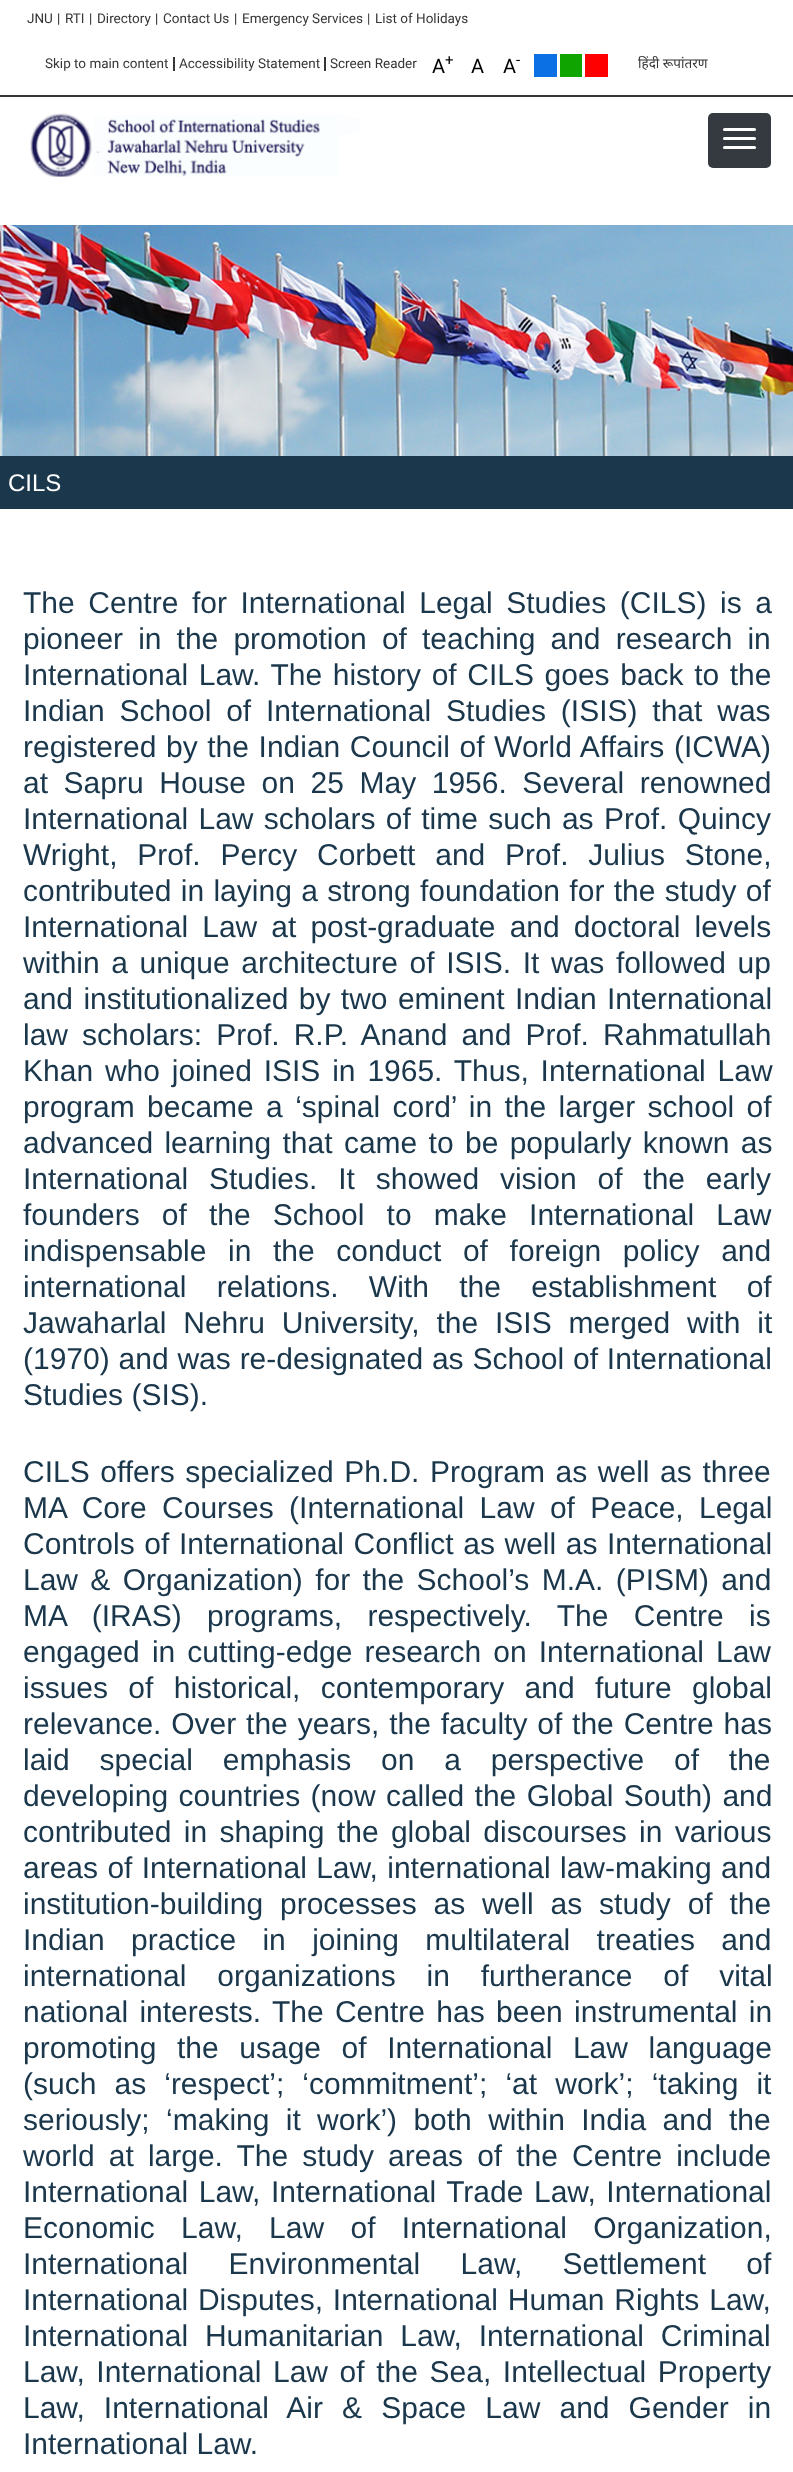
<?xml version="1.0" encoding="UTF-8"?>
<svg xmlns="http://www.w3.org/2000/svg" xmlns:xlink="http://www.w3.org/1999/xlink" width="793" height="2472">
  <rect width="100%" height="100%" fill="#ffffff" />
  <rect y="95" width="793" height="2" fill="#373434" />
  <rect x="173" y="57" width="2" height="14" fill="#373434" />
  <rect x="324" y="57" width="2" height="14" fill="#373434" />
  <rect x="534" y="54" width="23" height="23" fill="#0a70e3" />
  <rect x="560" y="54" width="22" height="23" fill="#0fa400" />
  <rect x="585" y="54" width="23" height="23" fill="#ff0000" />
  <image x="30" y="113" width="330" height="64" xlink:href="image1.png" />
  <rect x="708" y="113" width="63" height="55" rx="5" fill="#343a40" />
  <rect x="723" y="128" width="33" height="3" rx="1.5" fill="#ffffff" />
  <rect x="723" y="137" width="33" height="3" rx="1.5" fill="#ffffff" />
  <rect x="723" y="146" width="33" height="3" rx="1.5" fill="#ffffff" />
  <image x="0" y="225" width="793" height="231" xlink:href="image2.png" />
  <rect y="456" width="793" height="53" fill="#1b374c" />
  <text x="27" y="23" style="font-family: Roboto; font-size: 13.5px; fill: #373434">JNU</text>
  <text x="57" y="23" style="font-family: Roboto; font-size: 13.5px; fill: #212529">|</text>
  <text x="65" y="23" style="font-family: Roboto; font-size: 13.5px; fill: #373434">RTI</text>
  <text x="89" y="23" style="font-family: Roboto; font-size: 13.5px; fill: #212529">|</text>
  <text x="97" y="23" style="font-family: Roboto; font-size: 13.5px; fill: #373434">Directory</text>
  <text x="155" y="23" style="font-family: Roboto; font-size: 13.5px; fill: #212529">|</text>
  <text x="163" y="23" style="font-family: Roboto; font-size: 13.5px; fill: #373434">Contact Us</text>
  <text x="234" y="23" style="font-family: Roboto; font-size: 13.5px; fill: #212529">|</text>
  <text x="242" y="23" style="font-family: Roboto; font-size: 13.5px; fill: #373434">Emergency Services</text>
  <text x="367" y="23" style="font-family: Roboto; font-size: 13.5px; fill: #373434">|</text>
  <text x="375" y="23" style="font-family: Roboto; font-size: 13.5px; fill: #373434">List of Holidays</text>
  <text x="45" y="68" style="font-family: Roboto; font-size: 13.5px; fill: #373434">Skip to main content</text>
  <text x="179" y="68" style="font-family: Roboto; font-size: 13.5px; fill: #373434">Accessibility Statement</text>
  <text x="330" y="68" style="font-family: Roboto; font-size: 13.5px; fill: #373434">Screen Reader</text>
  <text x="432" y="73" style="font-family: Roboto; font-size: 20px; fill: #000000">A</text>
  <text x="445" y="65" style="font-family: Roboto; font-size: 15px; fill: #000000">+</text>
  <text x="471" y="73" style="font-family: Roboto; font-size: 20px; fill: #000000">A</text>
  <text x="503" y="73" style="font-family: Roboto; font-size: 20px; fill: #000000">A</text>
  <text x="516" y="65" style="font-family: Roboto; font-size: 15px; fill: #000000">-</text>
  <text x="638" y="68" style="font-family: Noto Sans; font-size: 13.5px; fill: #373434">हिंदी रूपांतरण</text>
  <text x="8" y="491" style="font-family: Liberation Sans; font-size: 24px; fill: #ffffff">CILS</text>
  <text x="23" y="613" word-spacing="5.25" style="font-family: Liberation Sans; font-size: 30px; fill: #1b374c">The Centre for International Legal Studies (CILS) is a</text>
  <text x="23" y="649" word-spacing="6.75" style="font-family: Liberation Sans; font-size: 30px; fill: #1b374c">pioneer in the promotion of teaching and research in</text>
  <text x="23" y="685" word-spacing="2.25" style="font-family: Liberation Sans; font-size: 30px; fill: #1b374c">International Law. The history of CILS goes back to the</text>
  <text x="23" y="721" word-spacing="6.5" style="font-family: Liberation Sans; font-size: 30px; fill: #1b374c">Indian School of International Studies (ISIS) that was</text>
  <text x="23" y="757" word-spacing="1.25" style="font-family: Liberation Sans; font-size: 30px; fill: #1b374c">registered by the Indian Council of World Affairs (ICWA)</text>
  <text x="23" y="793" word-spacing="7.25" style="font-family: Liberation Sans; font-size: 30px; fill: #1b374c">at Sapru House on 25 May 1956. Several renowned</text>
  <text x="23" y="829" word-spacing="2" style="font-family: Liberation Sans; font-size: 30px; fill: #1b374c">International Law scholars of time such as Prof. Quincy</text>
  <text x="23" y="865" word-spacing="11.5" style="font-family: Liberation Sans; font-size: 30px; fill: #1b374c">Wright, Prof. Percy Corbett and Prof. Julius Stone,</text>
  <text x="23" y="901" word-spacing="1" style="font-family: Liberation Sans; font-size: 30px; fill: #1b374c">contributed in laying a strong foundation for the study of</text>
  <text x="23" y="937" word-spacing="5.75" style="font-family: Liberation Sans; font-size: 30px; fill: #1b374c">International Law at post-graduate and doctoral levels</text>
  <text x="23" y="973" word-spacing="3.25" style="font-family: Liberation Sans; font-size: 30px; fill: #1b374c">within a unique architecture of ISIS. It was followed up</text>
  <text x="23" y="1009" word-spacing="2" style="font-family: Liberation Sans; font-size: 30px; fill: #1b374c">and institutionalized by two eminent Indian International</text>
  <text x="23" y="1045" word-spacing="5.75" style="font-family: Liberation Sans; font-size: 30px; fill: #1b374c">law scholars: Prof. R.P. Anand and Prof. Rahmatullah</text>
  <text x="23" y="1081" word-spacing="3.5" style="font-family: Liberation Sans; font-size: 30px; fill: #1b374c">Khan who joined ISIS in 1965. Thus, International Law</text>
  <text x="23" y="1117" word-spacing="4" style="font-family: Liberation Sans; font-size: 30px; fill: #1b374c">program became a ‘spinal cord’ in the larger school of</text>
  <text x="23" y="1153" word-spacing="3" style="font-family: Liberation Sans; font-size: 30px; fill: #1b374c">advanced learning that came to be popularly known as</text>
  <text x="23" y="1189" word-spacing="12.5" style="font-family: Liberation Sans; font-size: 30px; fill: #1b374c">International Studies. It showed vision of the early</text>
  <text x="23" y="1225" word-spacing="13.75" style="font-family: Liberation Sans; font-size: 30px; fill: #1b374c">founders of the School to make International Law</text>
  <text x="23" y="1261" word-spacing="13.25" style="font-family: Liberation Sans; font-size: 30px; fill: #1b374c">indispensable in the conduct of foreign policy and</text>
  <text x="23" y="1297" word-spacing="22" style="font-family: Liberation Sans; font-size: 30px; fill: #1b374c">international relations. With the establishment of</text>
  <text x="23" y="1333" word-spacing="8.5" style="font-family: Liberation Sans; font-size: 30px; fill: #1b374c">Jawaharlal Nehru University, the ISIS merged with it</text>
  <text x="23" y="1369" word-spacing="0.5" style="font-family: Liberation Sans; font-size: 30px; fill: #1b374c">(1970) and was re-designated as School of International</text>
  <text x="23" y="1405" style="font-family: Liberation Sans; font-size: 30px; fill: #1b374c">Studies (SIS).</text>
  <text x="23" y="1482" word-spacing="2.25" style="font-family: Liberation Sans; font-size: 30px; fill: #1b374c">CILS offers specialized Ph.D. Program as well as three</text>
  <text x="23" y="1518" word-spacing="7" style="font-family: Liberation Sans; font-size: 30px; fill: #1b374c">MA Core Courses (International Law of Peace, Legal</text>
  <text x="23" y="1554" word-spacing="1.25" style="font-family: Liberation Sans; font-size: 30px; fill: #1b374c">Controls of International Conflict as well as International</text>
  <text x="23" y="1590" word-spacing="4" style="font-family: Liberation Sans; font-size: 30px; fill: #1b374c">Law &amp; Organization) for the School’s M.A. (PISM) and</text>
  <text x="23" y="1626" word-spacing="17" style="font-family: Liberation Sans; font-size: 30px; fill: #1b374c">MA (IRAS) programs, respectively. The Centre is</text>
  <text x="23" y="1662" word-spacing="3.75" style="font-family: Liberation Sans; font-size: 30px; fill: #1b374c">engaged in cutting-edge research on International Law</text>
  <text x="23" y="1698" word-spacing="12" style="font-family: Liberation Sans; font-size: 30px; fill: #1b374c">issues of historical, contemporary and future global</text>
  <text x="23" y="1734" word-spacing="1.5" style="font-family: Liberation Sans; font-size: 30px; fill: #1b374c">relevance. Over the years, the faculty of the Centre has</text>
  <text x="23" y="1770" word-spacing="21.5" style="font-family: Liberation Sans; font-size: 30px; fill: #1b374c">laid special emphasis on a perspective of the</text>
  <text x="23" y="1806" word-spacing="2" style="font-family: Liberation Sans; font-size: 30px; fill: #1b374c">developing countries (now called the Global South) and</text>
  <text x="23" y="1842" word-spacing="4" style="font-family: Liberation Sans; font-size: 30px; fill: #1b374c">contributed in shaping the global discourses in various</text>
  <text x="23" y="1878" word-spacing="1" style="font-family: Liberation Sans; font-size: 30px; fill: #1b374c">areas of International Law, international law-making and</text>
  <text x="23" y="1914" word-spacing="8.5" style="font-family: Liberation Sans; font-size: 30px; fill: #1b374c">institution-building processes as well as study of the</text>
  <text x="23" y="1950" word-spacing="18" style="font-family: Liberation Sans; font-size: 30px; fill: #1b374c">Indian practice in joining multilateral treaties and</text>
  <text x="23" y="1986" word-spacing="22.5" style="font-family: Liberation Sans; font-size: 30px; fill: #1b374c">international organizations in furtherance of vital</text>
  <text x="23" y="2022" word-spacing="3" style="font-family: Liberation Sans; font-size: 30px; fill: #1b374c">national interests. The Centre has been instrumental in</text>
  <text x="23" y="2058" word-spacing="12.25" style="font-family: Liberation Sans; font-size: 30px; fill: #1b374c">promoting the usage of International Law language</text>
  <text x="23" y="2094" word-spacing="9.75" style="font-family: Liberation Sans; font-size: 30px; fill: #1b374c">(such as ‘respect’; ‘commitment’; ‘at work’; ‘taking it</text>
  <text x="23" y="2130" word-spacing="8" style="font-family: Liberation Sans; font-size: 30px; fill: #1b374c">seriously; ‘making it work’) both within India and the</text>
  <text x="23" y="2166" word-spacing="5.75" style="font-family: Liberation Sans; font-size: 30px; fill: #1b374c">world at large. The study areas of the Centre include</text>
  <text x="23" y="2202" word-spacing="2.25" style="font-family: Liberation Sans; font-size: 30px; fill: #1b374c">International Law, International Trade Law, International</text>
  <text x="23" y="2238" word-spacing="18" style="font-family: Liberation Sans; font-size: 30px; fill: #1b374c">Economic Law, Law of International Organization,</text>
  <text x="23" y="2274" word-spacing="32" style="font-family: Liberation Sans; font-size: 30px; fill: #1b374c">International Environmental Law, Settlement of</text>
  <text x="23" y="2310" word-spacing="1.5" style="font-family: Liberation Sans; font-size: 30px; fill: #1b374c">International Disputes, International Human Rights Law,</text>
  <text x="23" y="2346" word-spacing="8.5" style="font-family: Liberation Sans; font-size: 30px; fill: #1b374c">International Humanitarian Law, International Criminal</text>
  <text x="23" y="2382" word-spacing="3.25" style="font-family: Liberation Sans; font-size: 30px; fill: #1b374c">Law, International Law of the Sea, Intellectual Property</text>
  <text x="23" y="2418" word-spacing="10.75" style="font-family: Liberation Sans; font-size: 30px; fill: #1b374c">Law, International Air &amp; Space Law and Gender in</text>
  <text x="23" y="2454" style="font-family: Liberation Sans; font-size: 30px; fill: #1b374c">International Law.</text>
</svg>
